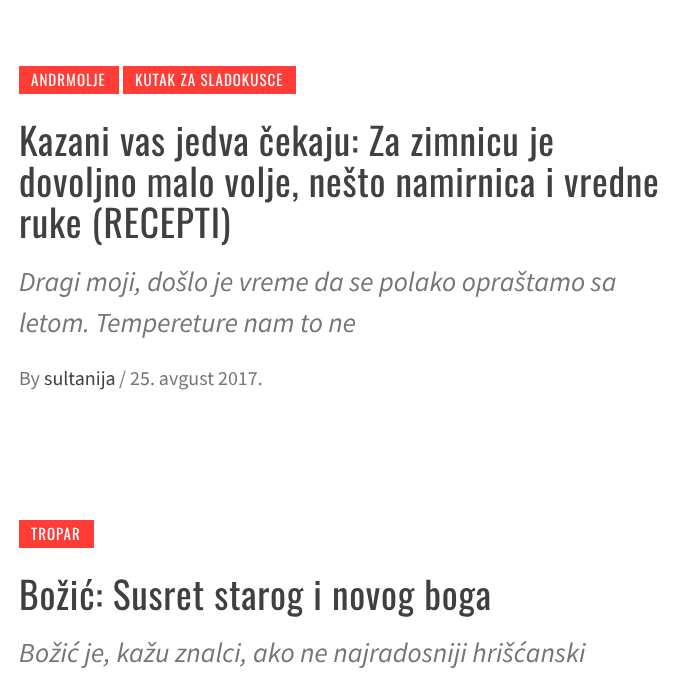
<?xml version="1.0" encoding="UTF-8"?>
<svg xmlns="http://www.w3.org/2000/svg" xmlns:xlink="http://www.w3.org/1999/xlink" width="680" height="685">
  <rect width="100%" height="100%" fill="#ffffff" />
  <rect x="19" y="66" width="100" height="28" fill="#ff3c36" />
  <rect x="123" y="66" width="173" height="28" fill="#ff3c36" />
  <rect x="19" y="520" width="75" height="28" fill="#ff3c36" />
  <text x="31" y="86" style="font-family: Oswald; font-size: 15px; letter-spacing: 1px; fill: #ffffff">ANDRMOLJE</text>
  <text x="135" y="86" style="font-family: Oswald; font-size: 15px; letter-spacing: 1px; fill: #ffffff">KUTAK ZA SLADOKUSCE</text>
  <text x="19" y="156" style="font-family: Oswald; font-size: 37.5px; letter-spacing: 0.75px; fill: #404040">Kazani vas jedva čekaju: Za zimnicu je</text>
  <text x="19" y="197" style="font-family: Oswald; font-size: 37.5px; letter-spacing: 0.75px; fill: #404040">dovoljno malo volje, nešto namirnica i vredne</text>
  <text x="19" y="238" style="font-family: Oswald; font-size: 37.5px; letter-spacing: 0.75px; fill: #404040">ruke (RECEPTI)</text>
  <text x="19" y="291" style="font-family: Source Sans Pro; font-size: 27.5px; font-style: italic; fill: #757575">Dragi moji, došlo je vreme da se polako opraštamo sa</text>
  <text x="19" y="332" style="font-family: Source Sans Pro; font-size: 27.5px; font-style: italic; fill: #757575">letom. Tempereture nam to ne</text>
  <text x="19" y="385" style="font-family: Source Sans Pro; font-size: 20px; fill: #757575">By</text>
  <text x="44" y="385" style="font-family: Source Sans Pro; font-size: 20px; fill: #404040">sultanija</text>
  <text x="119" y="385" style="font-family: Source Sans Pro; font-size: 20px; fill: #757575">/ 25. avgust 2017.</text>
  <text x="31" y="540" style="font-family: Oswald; font-size: 15px; letter-spacing: 1px; fill: #ffffff">TROPAR</text>
  <text x="19" y="610" style="font-family: Oswald; font-size: 37.5px; letter-spacing: 0.75px; fill: #404040">Božić: Susret starog i novog boga</text>
  <text x="19" y="662" style="font-family: Source Sans Pro; font-size: 27.5px; font-style: italic; fill: #757575">Božić je, kažu znalci, ako ne najradosniji hrišćanski</text>
</svg>
